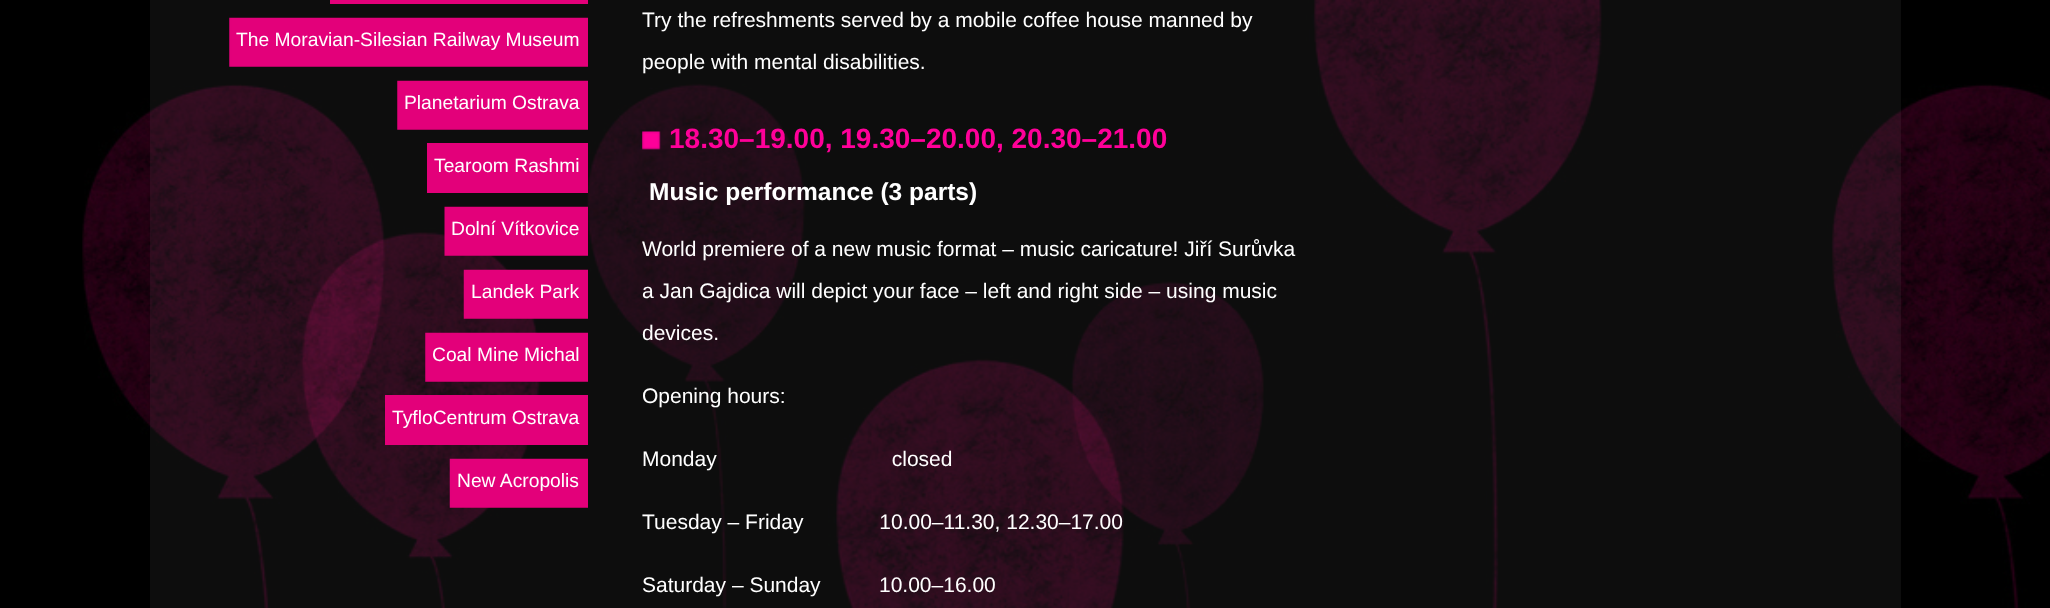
<?xml version="1.0" encoding="UTF-8"?>
<svg xmlns="http://www.w3.org/2000/svg" xmlns:xlink="http://www.w3.org/1999/xlink" width="2050" height="608">
  <rect width="100%" height="100%" fill="#000000" />
  <image x="82" y="0" width="1968" height="608" xlink:href="image1.png" />
  <rect x="150" width="1751" height="608" fill="#ffffff" fill-opacity="0.05" />
  <rect x="330" width="258" height="4" fill="#e3007a" />
  <image x="229" y="17" width="359" height="50" xlink:href="image2.png" />
  <image x="397" y="80" width="191" height="50" xlink:href="image3.png" />
  <rect x="427" y="143" width="161" height="50" fill="#e3007a" />
  <image x="444" y="206" width="144" height="50" xlink:href="image4.png" />
  <image x="463" y="269" width="125" height="50" xlink:href="image5.png" />
  <image x="425" y="332" width="163" height="50" xlink:href="image6.png" />
  <rect x="385" y="395" width="203" height="50" fill="#e3007a" />
  <image x="449" y="458" width="139" height="50" xlink:href="image7.png" />
  <image x="642" y="131" width="19" height="19" xlink:href="image8.png" />
  <text x="236" y="46" style="font-family: Liberation Sans; font-size: 19.25px; fill: #ffffff">The Moravian-Silesian Railway Museum</text>
  <text x="404" y="109" style="font-family: Liberation Sans; font-size: 19.25px; fill: #ffffff">Planetarium Ostrava</text>
  <text x="434" y="172" style="font-family: Liberation Sans; font-size: 19.25px; fill: #ffffff">Tearoom Rashmi</text>
  <text x="451" y="235" style="font-family: Liberation Sans; font-size: 19.25px; fill: #ffffff">Dolní Vítkovice</text>
  <text x="471" y="298" style="font-family: Liberation Sans; font-size: 19.25px; fill: #ffffff">Landek Park</text>
  <text x="432" y="361" style="font-family: Liberation Sans; font-size: 19.25px; fill: #ffffff">Coal Mine Michal</text>
  <text x="392" y="424" style="font-family: Liberation Sans; font-size: 19.25px; fill: #ffffff">TyfloCentrum Ostrava</text>
  <text x="457" y="487" style="font-family: Liberation Sans; font-size: 19.25px; fill: #ffffff">New Acropolis</text>
  <text x="642" y="27" style="font-family: Liberation Sans; font-size: 21px; fill: #ffffff">Try the refreshments served by a mobile coffee house manned by</text>
  <text x="642" y="69" style="font-family: Liberation Sans; font-size: 21px; fill: #ffffff">people with mental disabilities.</text>
  <text x="669" y="148" style="font-family: Liberation Sans; font-size: 28px; font-weight: bold; fill: #ff0099">18.30–19.00, 19.30–20.00, 20.30–21.00</text>
  <text x="649" y="200" style="font-family: Liberation Sans; font-size: 24.5px; font-weight: bold; fill: #ffffff">Music performance (3 parts)</text>
  <text x="642" y="256" style="font-family: Liberation Sans; font-size: 21px; fill: #ffffff">World premiere of a new music format – music caricature! Jiří Surůvka</text>
  <text x="642" y="298" style="font-family: Liberation Sans; font-size: 21px; fill: #ffffff">a Jan Gajdica will depict your face – left and right side – using music</text>
  <text x="642" y="340" style="font-family: Liberation Sans; font-size: 21px; fill: #ffffff">devices.</text>
  <text x="642" y="403" style="font-family: Liberation Sans; font-size: 21px; fill: #ffffff">Opening hours:</text>
  <text x="642" y="466" style="font-family: Liberation Sans; font-size: 21px; fill: #ffffff" xml:space="preserve">Monday                              closed</text>
  <text x="642" y="529" style="font-family: Liberation Sans; font-size: 21px; fill: #ffffff" xml:space="preserve">Tuesday – Friday             10.00–11.30, 12.30–17.00</text>
  <text x="642" y="592" style="font-family: Liberation Sans; font-size: 21px; fill: #ffffff" xml:space="preserve">Saturday – Sunday          10.00–16.00</text>
</svg>
